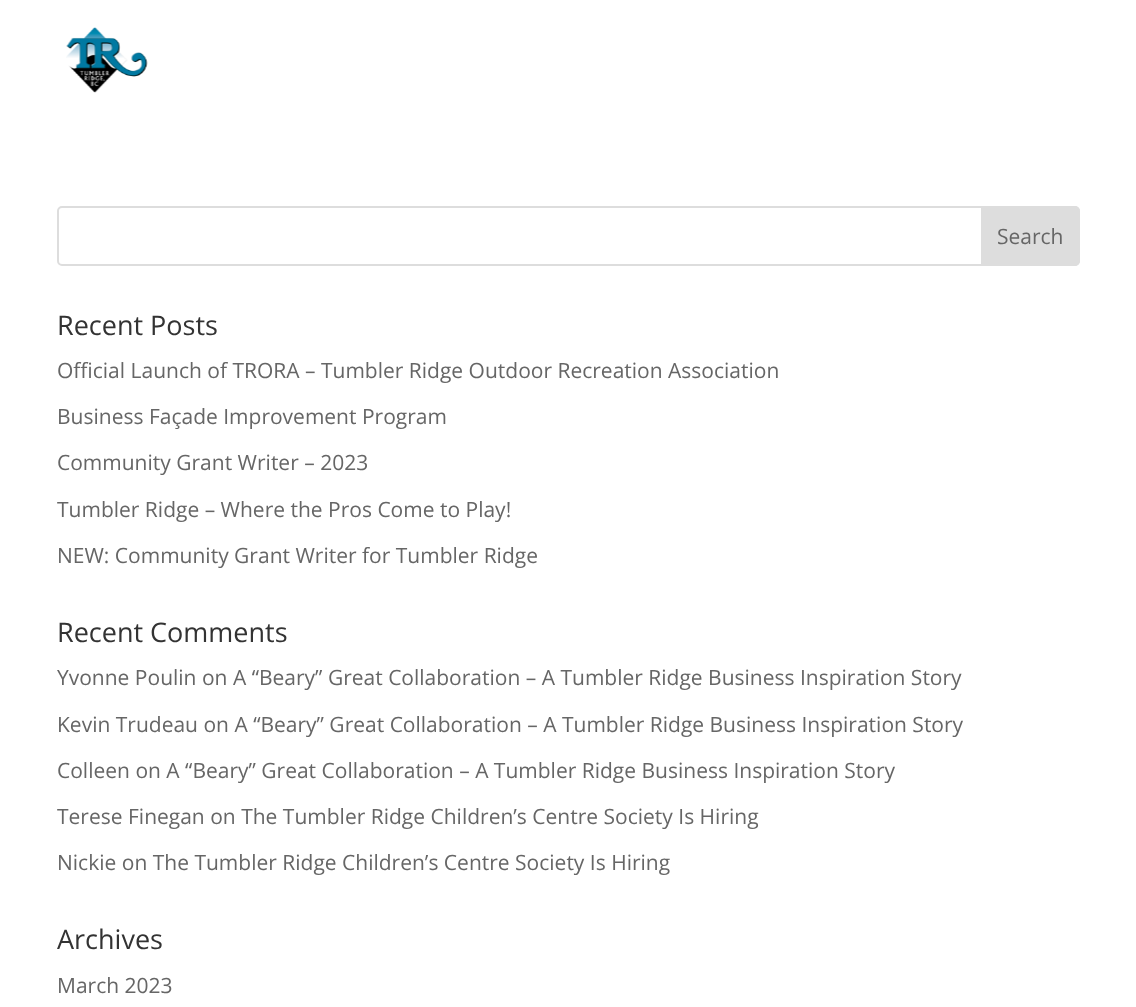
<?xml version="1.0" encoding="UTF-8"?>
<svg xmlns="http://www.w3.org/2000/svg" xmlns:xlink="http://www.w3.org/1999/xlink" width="1136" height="1007">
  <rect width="100%" height="100%" fill="#ffffff" />
  <image x="66" y="27" width="82" height="66" xlink:href="image1.png" />
  <rect x="58" y="207" width="1021" height="58" rx="4" fill="none" stroke="#dddddd" stroke-width="2" />
  <path d="M 982 207 h 93 c 2 0 4 2 4 4 v 50 c 0 2 -2 4 -4 4 h -93 z" fill="#dddddd" stroke="#dddddd" stroke-width="2" />
  <text x="997" y="244" style="font-family: Open Sans; font-size: 21px; fill: #666666">Search</text>
  <text x="57" y="335" style="font-family: Open Sans; font-size: 27px; fill: #333333">Recent Posts</text>
  <text x="57" y="378" style="font-family: Open Sans; font-size: 21px; fill: #666666">Official Launch of TRORA – Tumbler Ridge Outdoor Recreation Association</text>
  <text x="57" y="424" style="font-family: Open Sans; font-size: 21px; fill: #666666">Business Façade Improvement Program</text>
  <text x="57" y="470" style="font-family: Open Sans; font-size: 21px; fill: #666666">Community Grant Writer – 2023</text>
  <text x="57" y="517" style="font-family: Open Sans; font-size: 21px; fill: #666666">Tumbler Ridge – Where the Pros Come to Play!</text>
  <text x="57" y="563" style="font-family: Open Sans; font-size: 21px; fill: #666666">NEW: Community Grant Writer for Tumbler Ridge</text>
  <text x="57" y="642" style="font-family: Open Sans; font-size: 27px; fill: #333333">Recent Comments</text>
  <text x="57" y="685" style="font-family: Open Sans; font-size: 21px; fill: #666666">Yvonne Poulin on A “Beary” Great Collaboration – A Tumbler Ridge Business Inspiration Story</text>
  <text x="57" y="732" style="font-family: Open Sans; font-size: 21px; fill: #666666">Kevin Trudeau on A “Beary” Great Collaboration – A Tumbler Ridge Business Inspiration Story</text>
  <text x="57" y="778" style="font-family: Open Sans; font-size: 21px; fill: #666666">Colleen on A “Beary” Great Collaboration – A Tumbler Ridge Business Inspiration Story</text>
  <text x="57" y="824" style="font-family: Open Sans; font-size: 21px; fill: #666666">Terese Finegan on The Tumbler Ridge Children’s Centre Society Is Hiring</text>
  <text x="57" y="870" style="font-family: Open Sans; font-size: 21px; fill: #666666">Nickie on The Tumbler Ridge Children’s Centre Society Is Hiring</text>
  <text x="57" y="949" style="font-family: Open Sans; font-size: 27px; fill: #333333">Archives</text>
  <text x="57" y="993" style="font-family: Open Sans; font-size: 21px; fill: #666666">March 2023</text>
</svg>
